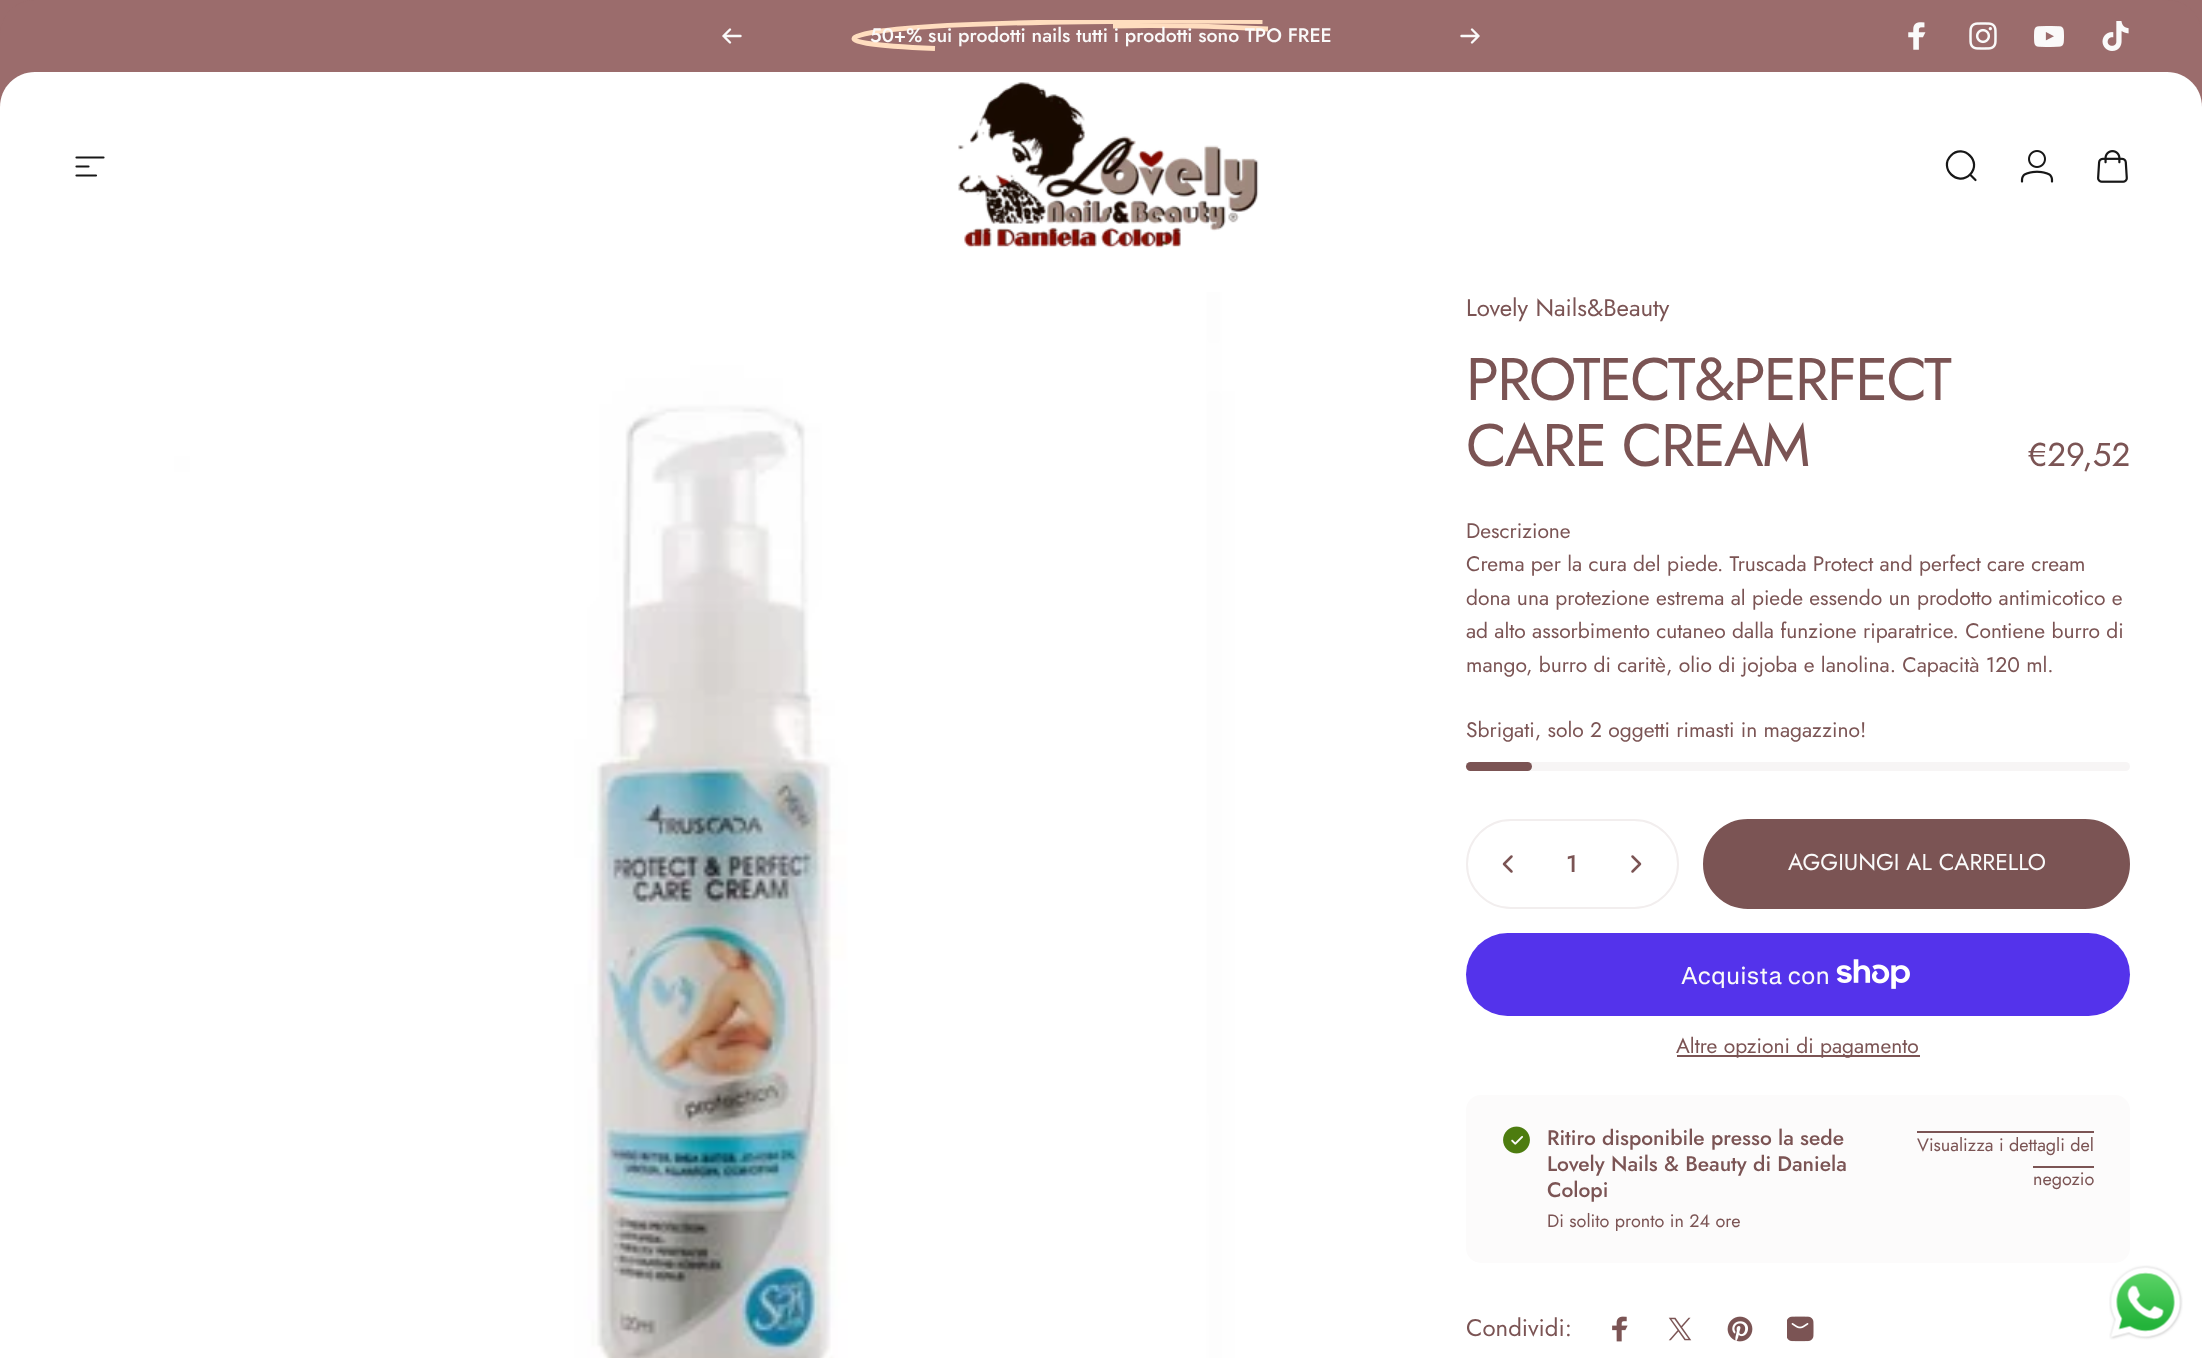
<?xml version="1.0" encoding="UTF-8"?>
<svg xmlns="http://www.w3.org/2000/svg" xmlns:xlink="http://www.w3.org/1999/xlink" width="2202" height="1358">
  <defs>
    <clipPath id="clip1"><rect x="840" y="20" width="522" height="33" /></clipPath>
  </defs>
  <rect width="100%" height="100%" fill="#ffffff" />
  <rect width="2202" height="35" fill="#9b6c6c" />
  <path d="M 35 0 h 2132 c 19.5 0 35 15.5 35 35 v 72 h -2202 v -72 c 0 -19.5 15.5 -35 35 -35 z" fill="#9b6c6c" />
  <path d="M 730 29.5 l -6.5 6.5 m 0 0 l 6.5 6.5 m -6.5 -6.5 h 17" fill="none" stroke="#fafafa" stroke-width="2.4" stroke-linecap="round" stroke-linejoin="round" />
  <g clip-path="url(#clip1)">
    <path d="M 1262.5 21.5 c 0 0 -343.5 -4 -401.5 13.5 c -23 6.5 13.5 11 74 13.5 m 333 -19.5 c -45.5 -2.5 -103 -4 -155 -3" fill="none" stroke="#ffddbf" stroke-width="4.9" />
  </g>
  <path d="M 1461.5 36 h 17 m 0 0 l -6.5 -6.5 m 6.5 6.5 l -6.5 6.5" fill="none" stroke="#fafafa" stroke-width="2.4" stroke-linecap="round" stroke-linejoin="round" />
  <image x="1908" y="22" width="18" height="28" xlink:href="image1.png" />
  <image x="1969" y="22" width="28" height="28" xlink:href="image2.png" />
  <image x="2034" y="26" width="30" height="21" xlink:href="image3.png" />
  <image x="2102" y="21" width="27" height="30" xlink:href="image4.png" />
  <path d="M 35 72 h 2132 c 19.5 0 35 15.5 35 35 v 183 h -2202 v -183 c 0 -19.5 15.5 -35 35 -35 z" fill="#ffffff" />
  <path d="M 76.5 157.5 h 27 m -27 9 h 12 m -12 9 h 19.5" fill="none" stroke="#171717" stroke-width="2.2" stroke-linecap="round" />
  <image x="958" y="82" width="301" height="166" xlink:href="image5.png" />
  <path d="M 1975.5 180 l -5.5 -5.5 m 0 0 c 12.5 -12.5 -6.5 -31.5 -19 -19 c -12.5 12.5 6.5 31.5 19 19 z" fill="none" stroke="#171717" stroke-width="2.2" stroke-linecap="round" />
  <image x="2020" y="150" width="34" height="33" xlink:href="image6.png" />
  <image x="2097" y="150" width="31" height="33" xlink:href="image7.png" />
  <image x="72" y="292" width="1290" height="1066" xlink:href="image8.png" />
  <rect x="1466" y="762" width="664" height="9" rx="4.5" fill="#f7f5f5" />
  <rect x="1466" y="762" width="66" height="9" rx="4.5" fill="#7b5454" />
  <rect x="1467" y="820" width="211" height="88" rx="44" fill="none" stroke="#f2eeee" stroke-width="2" />
  <path d="M 1511.5 856.5 l -7.5 7.5 l 7.5 7.5" fill="none" stroke="#7b5454" stroke-width="2.5" stroke-linecap="round" stroke-linejoin="round" />
  <path d="M 1632.5 856.5 l 7.5 7.5 l -7.5 7.5" fill="none" stroke="#7b5454" stroke-width="2.5" stroke-linecap="round" stroke-linejoin="round" />
  <rect x="1704" y="820" width="425" height="88" rx="44" fill="#7b5454" stroke="#7b5454" stroke-width="2" />
  <rect x="1466" y="933" width="664" height="83" rx="41.5" fill="#5433eb" />
  <image x="1836" y="959" width="74" height="30" xlink:href="image9.png" />
  <rect x="1677" y="1055" width="243" height="2" fill="#7b5454" />
  <rect x="1466" y="1095" width="664" height="168" rx="15" fill="#fcfbfb" />
  <image x="1503" y="1126" width="27" height="28" xlink:href="image10.png" />
  <rect x="1917" y="1131" width="177" height="2" fill="#7b5454" />
  <rect x="2033" y="1166" width="61" height="2" fill="#7b5454" />
  <image x="1612" y="1316" width="16" height="26" xlink:href="image11.png" />
  <image x="1668" y="1317" width="24" height="24" xlink:href="image12.png" />
  <image x="1727" y="1316" width="26" height="26" xlink:href="image13.png" />
  <image x="1787" y="1316" width="27" height="26" xlink:href="image14.png" />
  <image x="2109" y="1265" width="74" height="75" xlink:href="image15.png" />
  <text x="870" y="42" style="font-family: Jost; font-size: 19.5px; font-weight: 500; fill: #fafafa">50+% sui prodotti nails tutti i prodotti sono TPO FREE</text>
  <text x="1466" y="316" style="font-family: Jost; font-size: 24px; fill: #7b5454">Lovely Nails&amp;Beauty</text>
  <text x="1466" y="400" style="font-family: Jost; font-size: 60px; letter-spacing: -1.75px; fill: #7b5454">PROTECT&amp;PERFECT</text>
  <text x="1466" y="466" style="font-family: Jost; font-size: 60px; letter-spacing: -1.75px; fill: #7b5454">CARE CREAM</text>
  <text x="2028" y="466" style="font-family: Jost; font-size: 33px; fill: #7b5454">€29,52</text>
  <text x="1466" y="538" style="font-family: Jost; font-size: 21px; fill: #7b5454">Descrizione</text>
  <text x="1466" y="571" style="font-family: Jost; font-size: 21px; fill: #7b5454">Crema per la cura del piede. Truscada Protect and perfect care cream</text>
  <text x="1466" y="605" style="font-family: Jost; font-size: 21px; fill: #7b5454">dona una protezione estrema al piede essendo un prodotto antimicotico e</text>
  <text x="1466" y="638" style="font-family: Jost; font-size: 21px; fill: #7b5454">ad alto assorbimento cutaneo dalla funzione riparatrice. Contiene burro di</text>
  <text x="1466" y="672" style="font-family: Jost; font-size: 21px; fill: #7b5454">mango, burro di caritè, olio di jojoba e lanolina. Capacità 120 ml.</text>
  <text x="1466" y="737" style="font-family: Jost; font-size: 21px; fill: #7b5454">Sbrigati, solo 2 oggetti rimasti in magazzino!</text>
  <text x="1566" y="872" style="font-family: Jost; font-size: 24px; font-weight: 500; fill: #7b5454">1</text>
  <text x="1788" y="870" style="font-family: Jost; font-size: 23px; fill: #fafafa">AGGIUNGI AL CARRELLO</text>
  <text x="1681" y="984" style="font-family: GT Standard; font-size: 24px; fill: #fafafa">Acquista con</text>
  <text x="1676" y="1053" style="font-family: Jost; font-size: 21px; fill: #7b5454">Altre opzioni di pagamento</text>
  <text x="1547" y="1145" style="font-family: Jost; font-size: 21px; font-weight: 500; fill: #7b5454">Ritiro disponibile presso la sede</text>
  <text x="1547" y="1171" style="font-family: Jost; font-size: 21px; font-weight: 500; fill: #7b5454">Lovely Nails &amp; Beauty di Daniela</text>
  <text x="1547" y="1197" style="font-family: Jost; font-size: 21px; font-weight: 500; fill: #7b5454">Colopi</text>
  <text x="1547" y="1227" style="font-family: Jost; font-size: 18px; fill: #7b5454">Di solito pronto in 24 ore</text>
  <text x="1917" y="1151" style="font-family: Jost; font-size: 18px; fill: #7b5454">Visualizza i dettagli del</text>
  <text x="2033" y="1185" style="font-family: Jost; font-size: 18px; fill: #7b5454">negozio</text>
  <text x="1466" y="1336" style="font-family: Jost; font-size: 24px; fill: #7b5454">Condividi:</text>
</svg>
